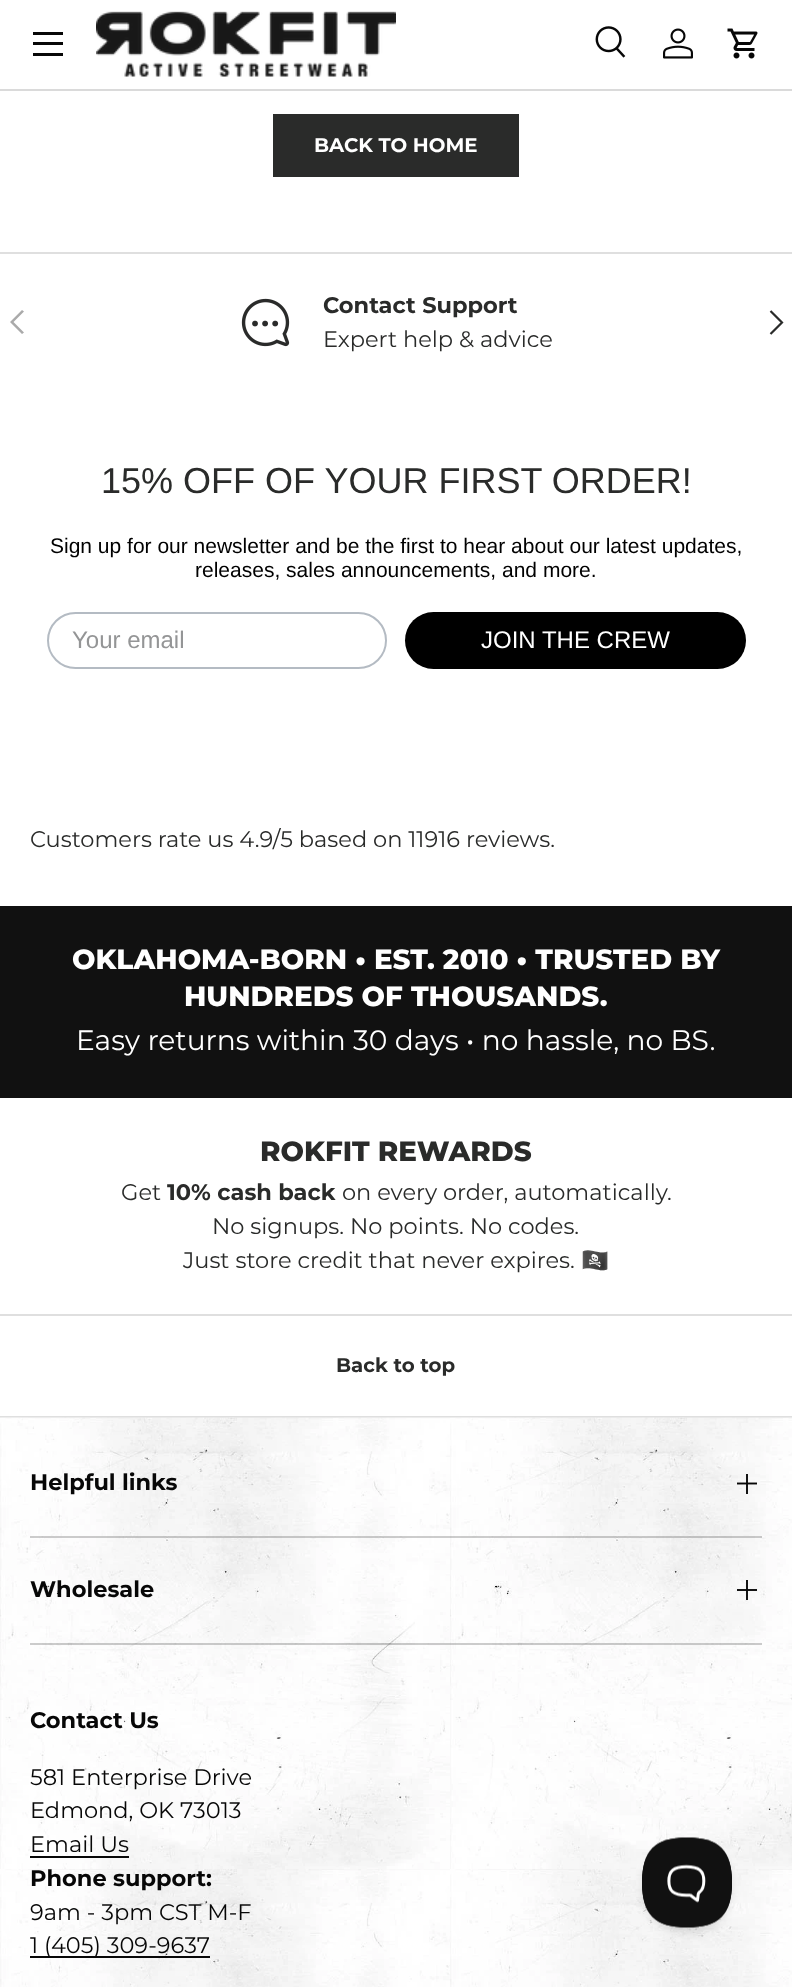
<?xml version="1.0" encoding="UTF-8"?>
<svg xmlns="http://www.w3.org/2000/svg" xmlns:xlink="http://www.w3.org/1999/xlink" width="792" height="1987">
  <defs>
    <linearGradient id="g1" gradientUnits="userSpaceOnUse" x1="-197" y1="58" x2="503" y2="233"><stop offset="0.6" stop-color="#525352" /><stop offset="0.6" stop-color="#2a2b2a" /><stop offset="1" stop-color="#2a2b2a" /></linearGradient>
  </defs>
  <rect width="100%" height="100%" fill="#ffffff" />
  <rect y="89" width="792" height="2" fill="#dadada" />
  <rect x="33" y="32" width="30" height="3" fill="#070707" />
  <rect x="33" y="53" width="30" height="3" fill="#070707" />
  <rect x="33" y="42" width="30" height="3" fill="#070707" />
  <image x="96" y="11" width="300" height="66" xlink:href="image1.png" />
  <image x="595" y="26" width="31" height="32" xlink:href="image2.png" />
  <image x="663" y="28" width="30" height="31" xlink:href="image3.png" />
  <image x="727" y="28" width="31" height="31" xlink:href="image4.png" />
  <rect x="275" y="116" width="242" height="59" fill="url(#g1)" />
  <rect x="274" y="115" width="244" height="61" fill="none" stroke="#2a2b2a" stroke-width="2" />
  <rect y="252" width="792" height="2" fill="#dfdfdf" />
  <image x="241" y="298" width="49" height="49" xlink:href="image5.png" />
  <path d="M 10 322 l 12 -12 l 2 1.5 l -10.5 10.5 l 10.5 10.5 l -2 1.5 z" fill="#aaaaaa" />
  <path d="M 770.5 311 l 11.5 11.5 l -11.5 11.5" fill="none" stroke="#2a2b2a" stroke-width="2.2" />
  <rect x="48" y="613" width="338" height="55" rx="27.5" fill="none" stroke="#b4bbc3" stroke-width="2" />
  <rect x="405" y="612" width="341" height="57" rx="28.5" fill="#000000" />
  <rect y="906" width="792" height="192" fill="#111111" />
  <rect y="1314" width="792" height="2" fill="#dfdfdf" />
  <rect y="1416" width="792" height="2" fill="#dfdfdf" />
  <image x="0" y="1417" width="792" height="570" xlink:href="image6.png" />
  <rect x="30" y="1536" width="732" height="2" fill="#070707" fill-opacity="0.2" />
  <image x="737" y="1474" width="20" height="20" xlink:href="image7.png" />
  <rect x="30" y="1643" width="732" height="2" fill="#070707" fill-opacity="0.2" />
  <image x="737" y="1580" width="20" height="20" xlink:href="image8.png" />
  <rect x="30" y="1856" width="99" height="2" fill="#070707" />
  <rect x="30" y="1956" width="180" height="2" fill="#070707" />
  <rect x="642" y="1844" width="90" height="90" rx="45" fill="#000000" fill-opacity="0.1" filter="blur(5px)" />
  <image x="642" y="1837" width="90" height="91" xlink:href="image9.png" />
  <text x="314" y="152" style="font-family: Montserrat; font-size: 19.75px; font-weight: bold; fill: #ffffff">BACK TO HOME</text>
  <text x="323" y="313" style="font-family: Montserrat; font-size: 22.5px; font-weight: bold; fill: #2a2b2a">Contact Support</text>
  <text x="323" y="347" style="font-family: Montserrat; font-size: 22.5px; fill: #2a2b2a">Expert help &amp; advice</text>
  <text x="101" y="493" style="font-family: Liberation Sans; font-size: 36px; fill: #2a2b2a">15% OFF OF YOUR FIRST ORDER!</text>
  <text x="50" y="553" style="font-family: Liberation Sans; font-size: 21px; fill: #000000">Sign up for our newsletter and be the first to hear about our latest updates,</text>
  <text x="195" y="577" style="font-family: Liberation Sans; font-size: 21px; fill: #000000">releases, sales announcements, and more.</text>
  <text x="72" y="648" style="font-family: Liberation Sans; font-size: 24px; fill: #949596">Your email</text>
  <text x="481" y="648" style="font-family: Liberation Sans; font-size: 24px; fill: #ffffff">JOIN THE CREW</text>
  <text x="30" y="847" style="font-family: Montserrat; font-size: 22.5px; fill: #2a2b2a">Customers rate us 4.9/5 based on 11916 reviews.</text>
  <text x="72" y="969" style="font-family: Montserrat; font-size: 27.75px; font-weight: 800; fill: #ffffff">OKLAHOMA-BORN • EST. 2010 • TRUSTED BY</text>
  <text x="184" y="1006" style="font-family: Montserrat; font-size: 27.75px; font-weight: 800; fill: #ffffff">HUNDREDS OF THOUSANDS.</text>
  <text x="76" y="1050" style="font-family: Montserrat; font-size: 28.1px; fill: #ffffff">Easy returns within 30 days • no hassle, no BS.</text>
  <text x="260" y="1161" style="font-family: Montserrat; font-size: 27.75px; font-weight: 800; fill: #2a2b2a">ROKFIT REWARDS</text>
  <text x="121" y="1200" style="font-family: Montserrat; font-size: 22.5px; fill: #2a2b2a">Get</text>
  <text x="167" y="1200" style="font-family: Montserrat; font-size: 22.5px; font-weight: bold; fill: #2a2b2a">10% cash back</text>
  <text x="342" y="1200" style="font-family: Montserrat; font-size: 22.5px; fill: #2a2b2a">on every order, automatically.</text>
  <text x="212" y="1234" style="font-family: Montserrat; font-size: 22.5px; fill: #2a2b2a">No signups. No points. No codes.</text>
  <text x="183" y="1268" style="font-family: Montserrat; font-size: 22.5px; fill: #2a2b2a">Just store credit that never expires.</text>
  <text x="581" y="1268" style="font-family: Noto Color Emoji; font-size: 22.5px; fill: #2a2b2a">🏴‍☠️</text>
  <text x="336" y="1372" style="font-family: Montserrat; font-size: 19.75px; font-weight: bold; fill: #2a2b2a">Back to top</text>
  <text x="30" y="1490" style="font-family: Montserrat; font-size: 22.5px; font-weight: bold; fill: #070707">Helpful links</text>
  <text x="30" y="1597" style="font-family: Montserrat; font-size: 22.5px; font-weight: bold; fill: #070707">Wholesale</text>
  <text x="30" y="1728" style="font-family: Montserrat; font-size: 22.5px; font-weight: bold; fill: #070707">Contact Us</text>
  <text x="30" y="1785" style="font-family: Montserrat; font-size: 22.5px; fill: #070707">581 Enterprise Drive</text>
  <text x="30" y="1818" style="font-family: Montserrat; font-size: 22.5px; fill: #070707">Edmond, OK 73013</text>
  <text x="30" y="1852" style="font-family: Montserrat; font-size: 22.5px; fill: #070707">Email Us</text>
  <text x="30" y="1886" style="font-family: Montserrat; font-size: 22.5px; font-weight: bold; fill: #070707">Phone support:</text>
  <text x="30" y="1920" style="font-family: Montserrat; font-size: 22.5px; fill: #070707">9am - 3pm CST M-F</text>
  <text x="30" y="1953" style="font-family: Montserrat; font-size: 22.5px; fill: #070707">1 (405) 309-9637</text>
</svg>
